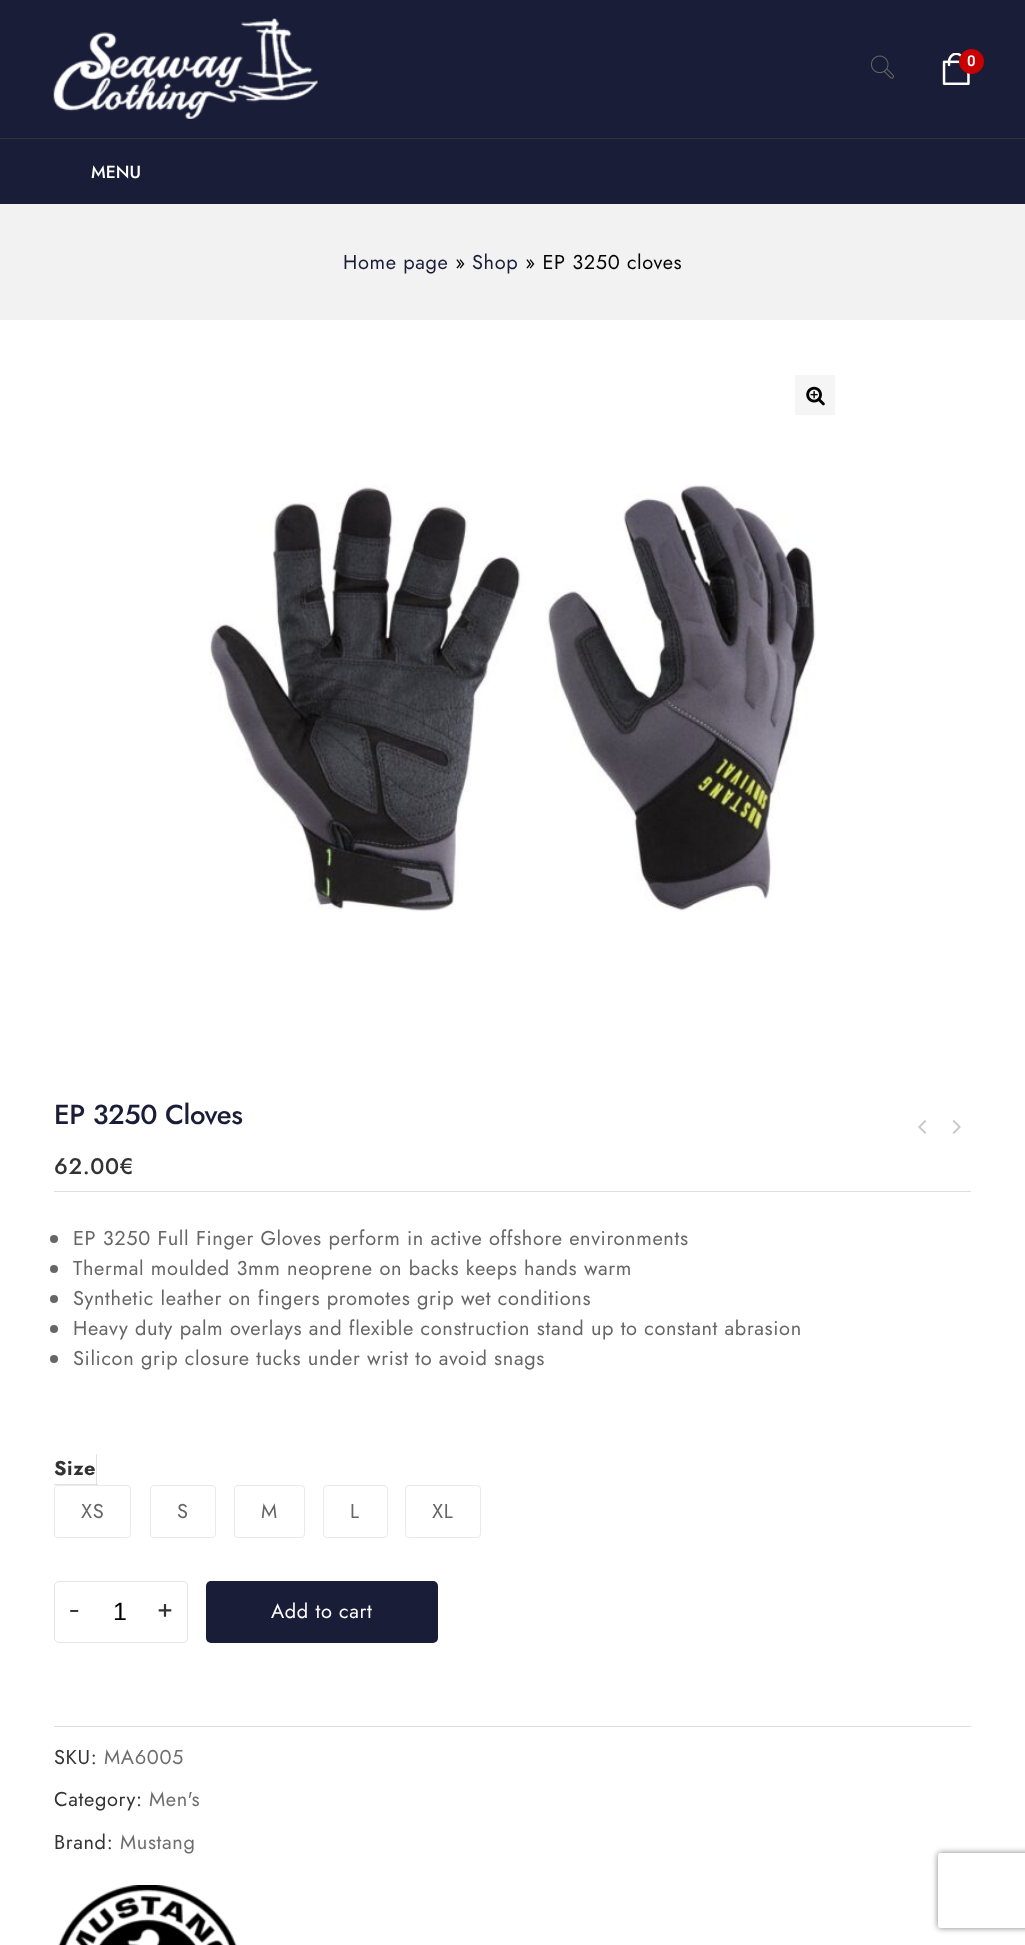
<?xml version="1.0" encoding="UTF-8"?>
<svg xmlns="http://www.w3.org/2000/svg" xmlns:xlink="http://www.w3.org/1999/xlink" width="1025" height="1945">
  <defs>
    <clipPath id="clip1"><path d="M 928 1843 h 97 v 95 h -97 z m 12.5 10 h 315 c 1.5 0 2.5 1 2.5 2.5 v 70 c 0 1.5 -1 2.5 -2.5 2.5 h -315 c -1.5 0 -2.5 -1 -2.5 -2.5 v -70 c 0 -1.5 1 -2.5 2.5 -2.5 z" clip-rule="evenodd" /></clipPath>
  </defs>
  <rect width="100%" height="100%" fill="#ffffff" />
  <rect width="1025" height="204" fill="#191d37" />
  <image x="53" y="18" width="265" height="101" xlink:href="image1.png" />
  <image x="871" y="55" width="23" height="24" xlink:href="image2.png" />
  <image x="942" y="53" width="28" height="32" xlink:href="image3.png" />
  <circle cx="971.5" cy="61.5" r="12.5" fill="#c90000" />
  <rect y="138" width="1025" height="1" fill="#333333" />
  <rect y="204" width="1025" height="116" fill="#f2f2f2" />
  <rect x="795" y="375" width="40" height="40" fill="#f5f5f5" />
  <image x="806" y="386" width="19" height="20" xlink:href="image4.png" />
  <image x="209" y="484" width="607" height="428" xlink:href="image5.png" />
  <image x="918" y="1120" width="9" height="14" xlink:href="image6.png" />
  <image x="952" y="1120" width="9" height="14" xlink:href="image7.png" />
  <rect x="54" y="1191" width="917" height="1" fill="#dedede" />
  <circle cx="54" cy="1239" r="4" fill="#666666" />
  <circle cx="54" cy="1269" r="4" fill="#666666" />
  <circle cx="54" cy="1299" r="4" fill="#666666" />
  <circle cx="54" cy="1329" r="4" fill="#666666" />
  <circle cx="54" cy="1359" r="4" fill="#666666" />
  <rect x="96" y="1454" width="1" height="31" fill="#e6e0dc" />
  <rect x="54" y="1484" width="44" height="1" fill="#e6e0dc" />
  <rect x="54.5" y="1485.5" width="76" height="52" rx="3.5" fill="none" stroke="#ebe9eb" />
  <rect x="150.5" y="1485.5" width="65" height="52" rx="3.5" fill="none" stroke="#ebe9eb" />
  <rect x="234.5" y="1485.5" width="70" height="52" rx="3.5" fill="none" stroke="#ebe9eb" />
  <rect x="323.5" y="1485.5" width="64" height="52" rx="3.5" fill="none" stroke="#ebe9eb" />
  <rect x="405.5" y="1485.5" width="75" height="52" rx="3.5" fill="none" stroke="#ebe9eb" />
  <rect x="54.5" y="1581.5" width="133" height="61" rx="4.5" fill="none" stroke="#e5e5e5" />
  <rect x="206" y="1581" width="232" height="62" rx="5" fill="#191d37" />
  <rect x="54" y="1726" width="917" height="1" fill="#dedede" />
  <image x="58" y="1885" width="179" height="60" xlink:href="image8.png" />
  <g clip-path="url(#clip1)">
    <rect x="938" y="1853" width="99" height="75" rx="2.5" fill="#808080" filter="blur(3px)" />
  </g>
  <text x="967" y="66" style="font-family: Heebo; font-size: 15px; font-weight: 600; letter-spacing: 0.62px; fill: #ffffff">0</text>
  <text x="91" y="178" style="font-family: Jost; font-size: 17.5px; font-weight: 500; fill: #ffffff">MENU</text>
  <text x="343" y="269" style="font-family: Jost; font-size: 20px; letter-spacing: 0.62px; fill: #191d37">Home page</text>
  <text x="455" y="269" style="font-family: Jost; font-size: 20px; letter-spacing: 0.62px; fill: #000000">»</text>
  <text x="472" y="269" style="font-family: Jost; font-size: 20px; letter-spacing: 0.62px; fill: #191d37">Shop</text>
  <text x="525" y="269" style="font-family: Jost; font-size: 20px; letter-spacing: 0.62px; fill: #000000">» EP 3250 cloves</text>
  <text x="54" y="1124" style="font-family: Jost; font-size: 27.5px; font-weight: 500; letter-spacing: -0.4px; fill: #191d37">EP 3250 Cloves</text>
  <text x="54" y="1174" style="font-family: Jost; font-size: 22.5px; font-weight: 500; letter-spacing: 0.62px; fill: #333333">62.00€</text>
  <text x="73" y="1245" style="font-family: Jost; font-size: 20px; letter-spacing: 0.62px; fill: #666666">EP 3250 Full Finger Gloves perform in active offshore environments</text>
  <text x="73" y="1275" style="font-family: Jost; font-size: 20px; letter-spacing: 0.62px; fill: #666666">Thermal moulded 3mm neoprene on backs keeps hands warm</text>
  <text x="73" y="1305" style="font-family: Jost; font-size: 20px; letter-spacing: 0.62px; fill: #666666">Synthetic leather on fingers promotes grip wet conditions</text>
  <text x="73" y="1335" style="font-family: Jost; font-size: 20px; letter-spacing: 0.62px; fill: #666666">Heavy duty palm overlays and flexible construction stand up to constant abrasion</text>
  <text x="73" y="1365" style="font-family: Jost; font-size: 20px; letter-spacing: 0.62px; fill: #666666">Silicon grip closure tucks under wrist to avoid snags</text>
  <text x="54" y="1475" style="font-family: Jost; font-size: 20px; font-weight: bold; letter-spacing: 0.62px; fill: #333333">Size</text>
  <text x="81" y="1518" style="font-family: Jost; font-size: 20px; letter-spacing: 0.62px; fill: #666666">XS</text>
  <text x="177" y="1518" style="font-family: Jost; font-size: 20px; letter-spacing: 0.62px; fill: #666666">S</text>
  <text x="261" y="1518" style="font-family: Jost; font-size: 20px; letter-spacing: 0.62px; fill: #666666">M</text>
  <text x="350" y="1518" style="font-family: Jost; font-size: 20px; letter-spacing: 0.62px; fill: #666666">L</text>
  <text x="432" y="1518" style="font-family: Jost; font-size: 20px; letter-spacing: 0.62px; fill: #666666">XL</text>
  <text x="70" y="1621" style="font-family: Jost; font-size: 40px; font-weight: 300; letter-spacing: 0.62px; fill: #333333">-</text>
  <text x="113" y="1620" style="font-family: Liberation Sans; font-size: 25px; fill: #000000">1</text>
  <text x="157" y="1617" style="font-family: Jost; font-size: 26px; letter-spacing: 0.62px; fill: #333333">+</text>
  <text x="271" y="1618" style="font-family: Jost; font-size: 20px; letter-spacing: 0.62px; fill: #ffffff">Add to cart</text>
  <text x="54" y="1764" style="font-family: Jost; font-size: 20px; letter-spacing: 0.62px; fill: #333333">SKU:</text>
  <text x="104" y="1764" style="font-family: Jost; font-size: 20px; letter-spacing: 0.62px; fill: #6e6e6e">MA6005</text>
  <text x="54" y="1806" style="font-family: Jost; font-size: 20px; letter-spacing: 0.62px; fill: #333333">Category:</text>
  <text x="149" y="1806" style="font-family: Jost; font-size: 20px; letter-spacing: 0.62px; fill: #6e6e6e">Men's</text>
  <text x="54" y="1849" style="font-family: Jost; font-size: 20px; letter-spacing: 0.62px; fill: #333333">Brand:</text>
  <text x="120" y="1849" style="font-family: Jost; font-size: 20px; letter-spacing: 0.62px; fill: #6e6e6e">Mustang</text>
</svg>
